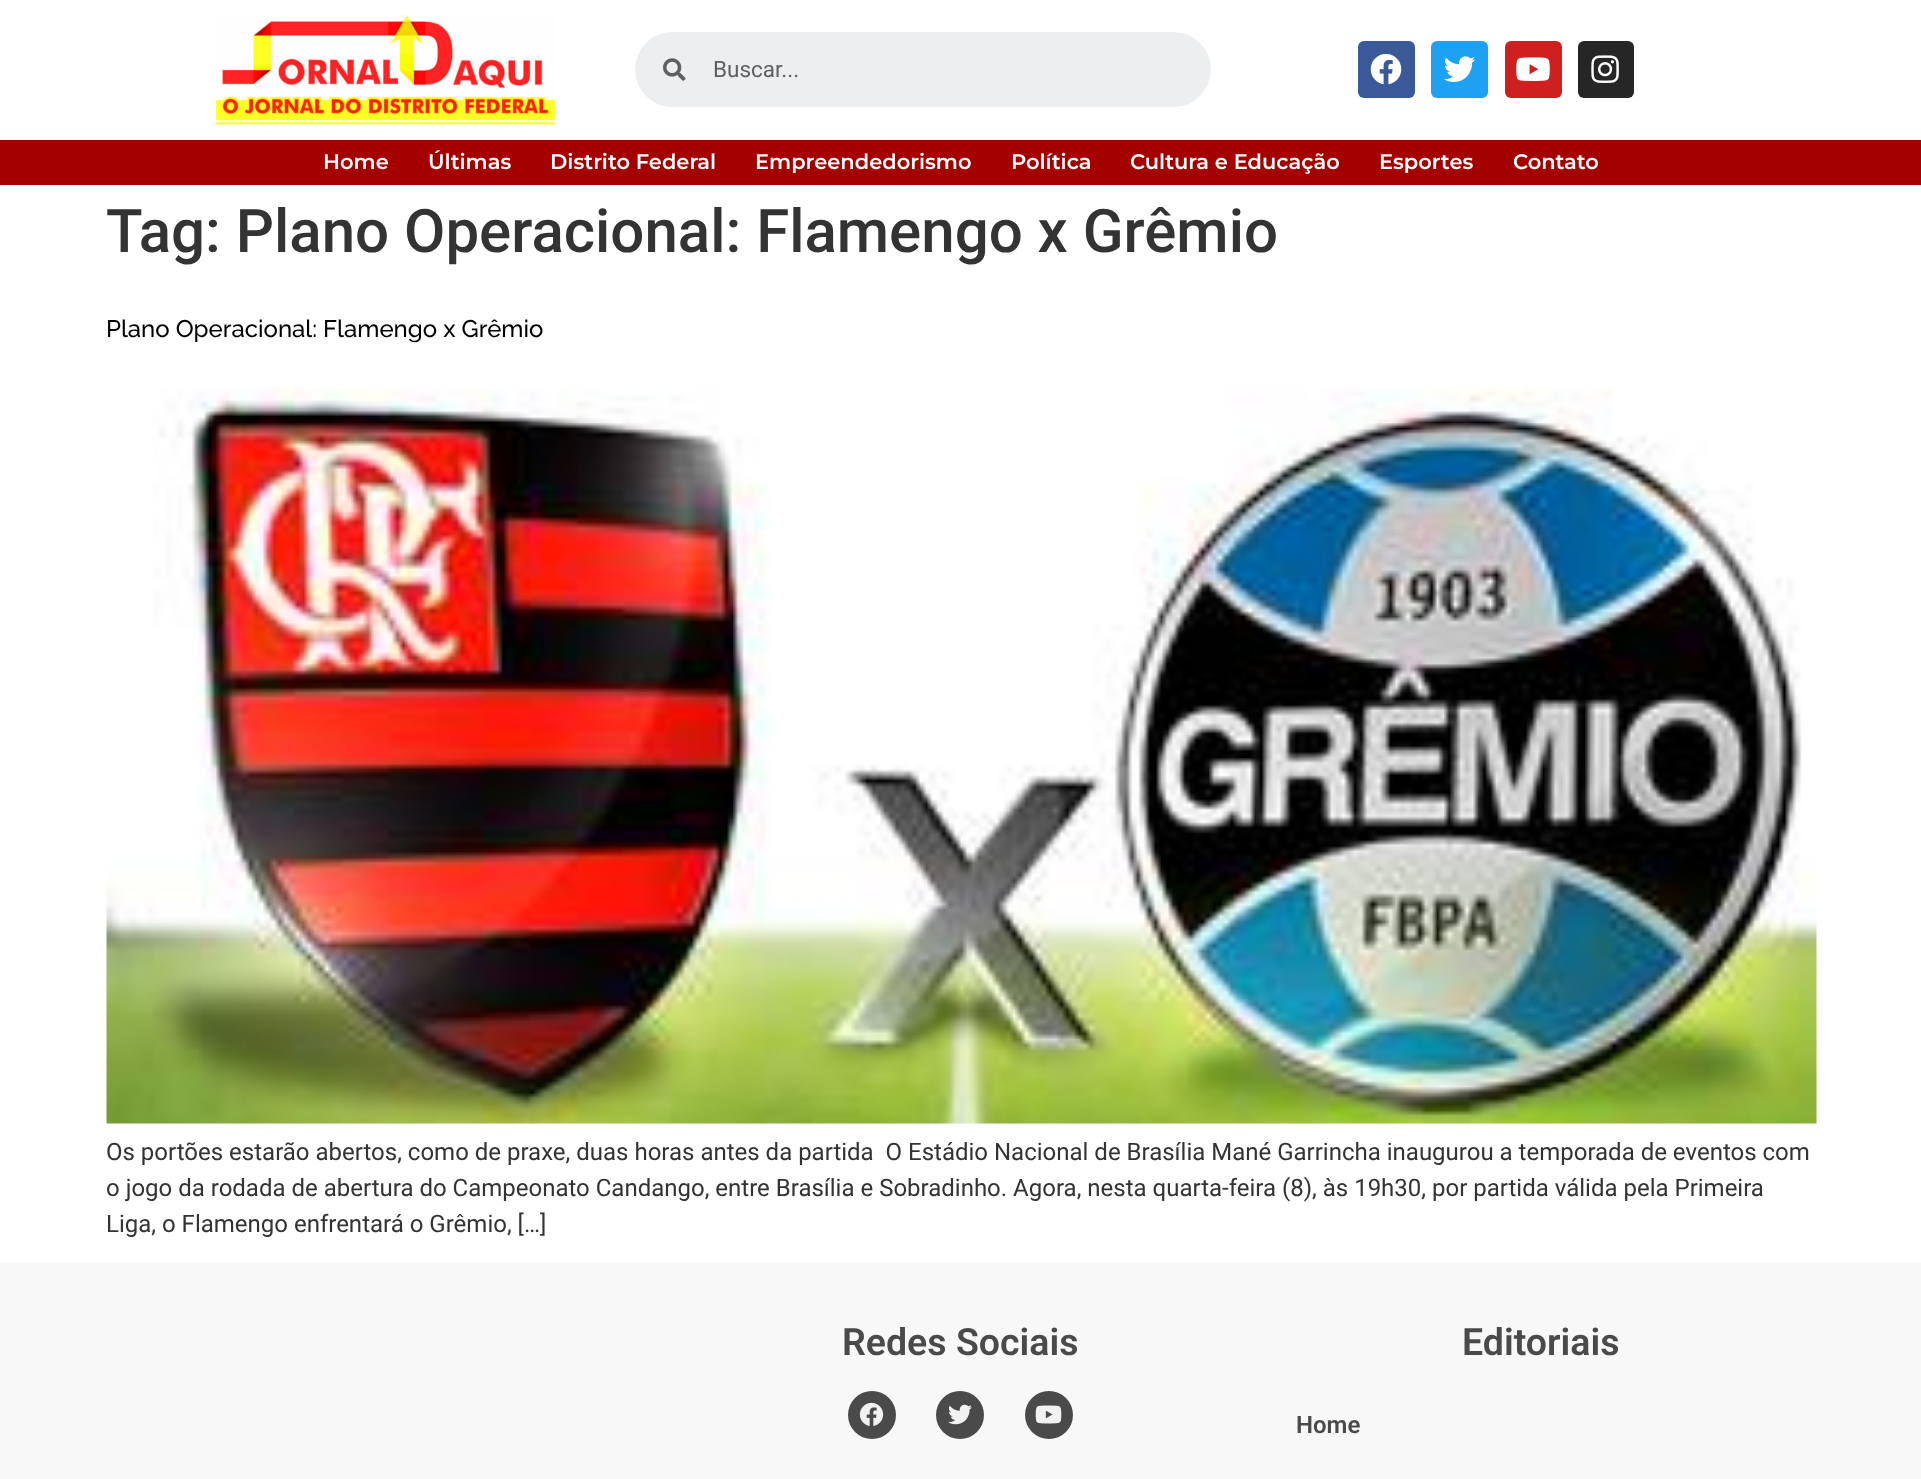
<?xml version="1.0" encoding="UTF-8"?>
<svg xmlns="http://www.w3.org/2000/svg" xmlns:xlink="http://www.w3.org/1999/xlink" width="1921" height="1479">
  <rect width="100%" height="100%" fill="#ffffff" />
  <image x="216" y="15" width="339" height="110" xlink:href="image1.png" />
  <rect x="635" y="32" width="576" height="75" rx="37.5" fill="#eceeef" />
  <image x="663" y="58" width="23" height="23" xlink:href="image2.png" />
  <rect x="1358" y="41" width="57" height="57" rx="6" fill="#3b5998" />
  <image x="1370" y="53" width="32" height="32" xlink:href="image3.png" />
  <rect x="1431" y="41" width="57" height="57" rx="6" fill="#1da1f2" />
  <image x="1444" y="56" width="32" height="26" xlink:href="image4.png" />
  <rect x="1505" y="41" width="57" height="57" rx="6" fill="#cd201f" />
  <image x="1516" y="57" width="34" height="24" xlink:href="image5.png" />
  <rect x="1578" y="41" width="56" height="57" rx="6" fill="#262626" />
  <image x="1591" y="55" width="28" height="28" xlink:href="image6.png" />
  <rect y="140" width="1921" height="45" fill="#a50000" />
  <image x="106" y="387" width="1711" height="737" xlink:href="image7.png" />
  <rect y="1263" width="1921" height="216" fill="#f8f8f8" />
  <circle cx="872" cy="1415" r="24" fill="#4a4a4a" />
  <image x="859" y="1402" width="25" height="24" xlink:href="image8.png" />
  <circle cx="960" cy="1415" r="24" fill="#4a4a4a" />
  <image x="948" y="1404" width="24" height="21" xlink:href="image9.png" />
  <circle cx="1049" cy="1415" r="24" fill="#4a4a4a" />
  <image x="1035" y="1405" width="27" height="19" xlink:href="image10.png" />
  <text x="713" y="77" style="font-family: Roboto; font-size: 22.5px; fill: #5e5f60">Buscar...</text>
  <text x="323" y="169" style="font-family: Montserrat; font-size: 21px; font-weight: 600; fill: #ffffff">Home</text>
  <text x="428" y="169" style="font-family: Montserrat; font-size: 21px; font-weight: 600; fill: #ffffff">Últimas</text>
  <text x="550" y="169" style="font-family: Montserrat; font-size: 21px; font-weight: 600; fill: #ffffff">Distrito Federal</text>
  <text x="755" y="169" style="font-family: Montserrat; font-size: 21px; font-weight: 600; fill: #ffffff">Empreendedorismo</text>
  <text x="1011" y="169" style="font-family: Montserrat; font-size: 21px; font-weight: 600; fill: #ffffff">Política</text>
  <text x="1130" y="169" style="font-family: Montserrat; font-size: 21px; font-weight: 600; fill: #ffffff">Cultura e Educação</text>
  <text x="1379" y="169" style="font-family: Montserrat; font-size: 21px; font-weight: 600; fill: #ffffff">Esportes</text>
  <text x="1513" y="169" style="font-family: Montserrat; font-size: 21px; font-weight: 600; fill: #ffffff">Contato</text>
  <text x="106" y="252" style="font-family: Roboto; font-size: 60px; font-weight: 500; fill: #333333">Tag: Plano Operacional: Flamengo x Grêmio</text>
  <text x="106" y="337" style="font-family: Raleway; font-size: 24px; font-weight: 500; fill: #000000">Plano Operacional: Flamengo x Grêmio</text>
  <text x="106" y="1160" style="font-family: Roboto; font-size: 24px; fill: #333333" xml:space="preserve">Os portões estarão abertos, como de praxe, duas horas antes da partida  O Estádio Nacional de Brasília Mané Garrincha inaugurou a temporada de eventos com</text>
  <text x="106" y="1196" style="font-family: Roboto; font-size: 24px; fill: #333333">o jogo da rodada de abertura do Campeonato Candango, entre Brasília e Sobradinho. Agora, nesta quarta-feira (8), às 19h30, por partida válida pela Primeira</text>
  <text x="106" y="1232" style="font-family: Roboto; font-size: 24px; fill: #333333">Liga, o Flamengo enfrentará o Grêmio, […]</text>
  <text x="842" y="1355" style="font-family: Roboto; font-size: 37.5px; font-weight: 600; fill: #4a4a4a">Redes Sociais</text>
  <text x="1462" y="1355" style="font-family: Roboto; font-size: 37.5px; font-weight: 600; fill: #4a4a4a">Editoriais</text>
  <text x="1296" y="1433" style="font-family: Roboto; font-size: 24px; font-weight: 600; fill: #4a4a4a">Home</text>
</svg>
